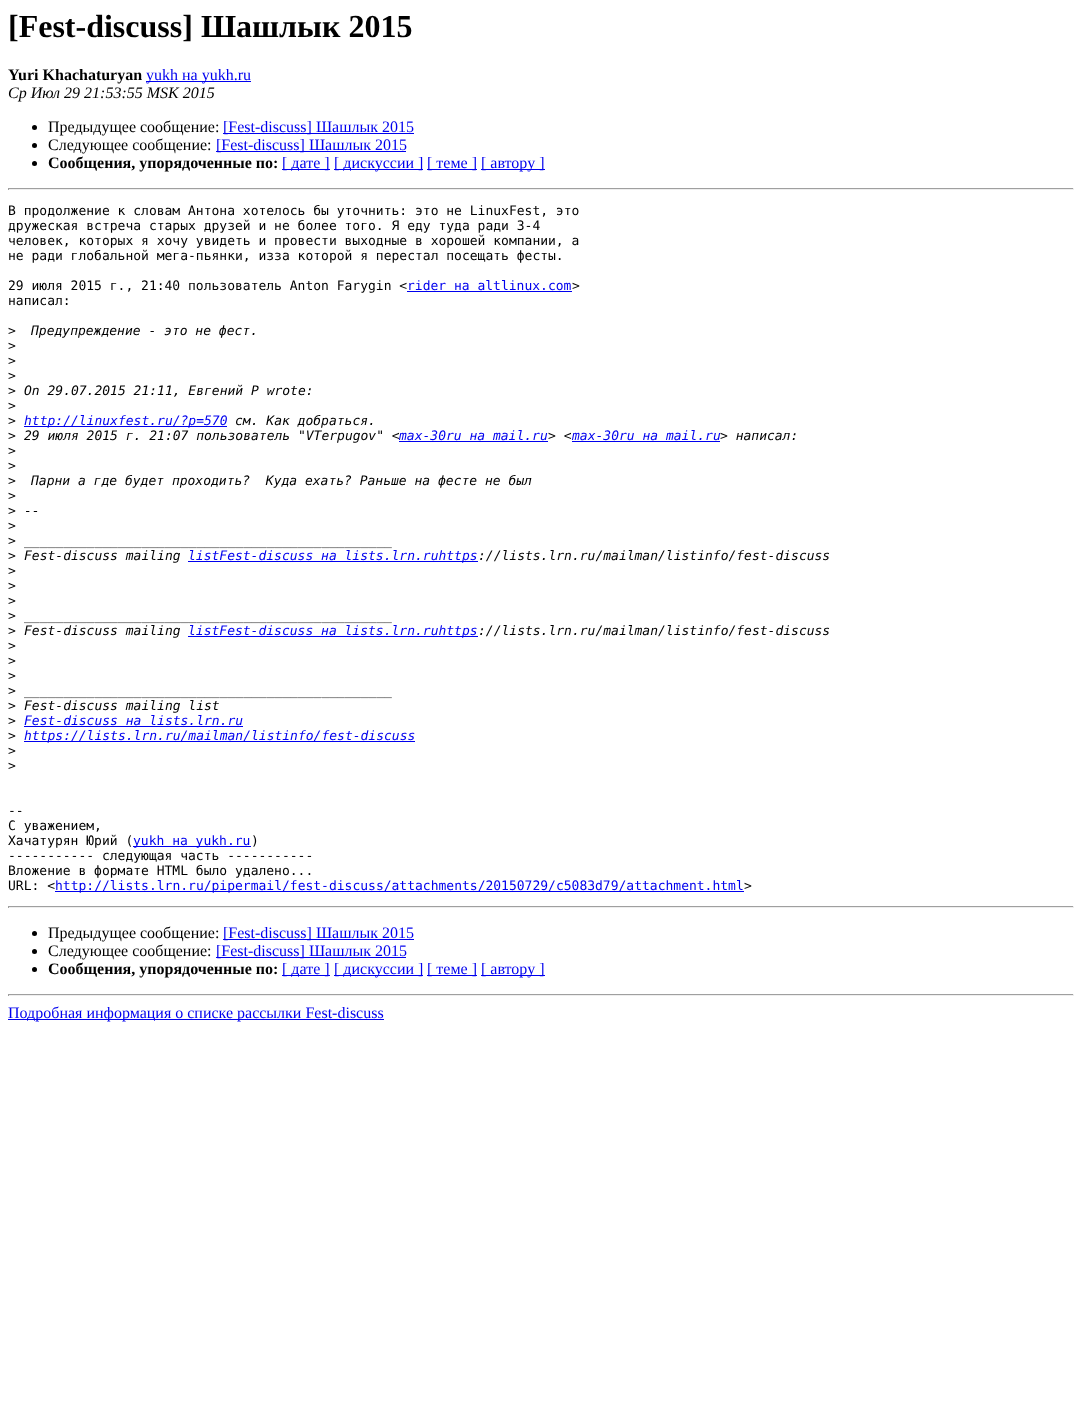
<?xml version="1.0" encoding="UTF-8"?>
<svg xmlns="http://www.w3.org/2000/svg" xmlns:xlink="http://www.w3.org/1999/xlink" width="1082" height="1409">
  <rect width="100%" height="100%" fill="#ffffff" />
  <rect x="146" y="81" width="105" height="1" fill="#0000ee" />
  <circle cx="34.5" cy="127.5" r="2.5" fill="#000000" />
  <rect x="223" y="133" width="191" height="1" fill="#0000ee" />
  <circle cx="34.5" cy="145.5" r="2.5" fill="#000000" />
  <rect x="216" y="151" width="190" height="1" fill="#0000ee" />
  <circle cx="34.5" cy="163.5" r="2.5" fill="#000000" />
  <rect x="282" y="169" width="48" height="1" fill="#0000ee" />
  <rect x="334" y="169" width="89" height="1" fill="#0000ee" />
  <rect x="427" y="169" width="50" height="1" fill="#0000ee" />
  <rect x="481" y="169" width="64" height="1" fill="#0000ee" />
  <rect x="8" y="188" width="1066" height="1" fill="#9f9f9f" />
  <rect x="1073" y="188" width="1" height="2" fill="#eeeeee" />
  <rect x="8" y="189" width="1066" height="1" fill="#eeeeee" />
  <rect x="8" y="188" width="1" height="2" fill="#9f9f9f" />
  <rect x="407" y="291" width="165" height="1" fill="#0000ee" />
  <rect x="24" y="426" width="203" height="1" fill="#0000ee" />
  <rect x="399" y="441" width="149" height="1" fill="#0000ee" />
  <rect x="572" y="441" width="148" height="1" fill="#0000ee" />
  <rect x="188" y="561" width="290" height="1" fill="#0000ee" />
  <rect x="188" y="636" width="290" height="1" fill="#0000ee" />
  <rect x="24" y="726" width="219" height="1" fill="#0000ee" />
  <rect x="24" y="741" width="391" height="1" fill="#0000ee" />
  <rect x="133" y="846" width="118" height="1" fill="#0000ee" />
  <rect x="55" y="891" width="689" height="1" fill="#0000ee" />
  <rect x="8" y="906" width="1066" height="1" fill="#9f9f9f" />
  <rect x="1073" y="906" width="1" height="2" fill="#eeeeee" />
  <rect x="8" y="907" width="1066" height="1" fill="#eeeeee" />
  <rect x="8" y="906" width="1" height="2" fill="#9f9f9f" />
  <circle cx="34.5" cy="933.5" r="2.5" fill="#000000" />
  <rect x="223" y="939" width="191" height="1" fill="#0000ee" />
  <circle cx="34.5" cy="951.5" r="2.5" fill="#000000" />
  <rect x="216" y="957" width="190" height="1" fill="#0000ee" />
  <circle cx="34.5" cy="969.5" r="2.5" fill="#000000" />
  <rect x="282" y="975" width="48" height="1" fill="#0000ee" />
  <rect x="334" y="975" width="89" height="1" fill="#0000ee" />
  <rect x="427" y="975" width="50" height="1" fill="#0000ee" />
  <rect x="481" y="975" width="64" height="1" fill="#0000ee" />
  <rect x="8" y="994" width="1066" height="1" fill="#9f9f9f" />
  <rect x="1073" y="994" width="1" height="2" fill="#eeeeee" />
  <rect x="8" y="995" width="1066" height="1" fill="#eeeeee" />
  <rect x="8" y="994" width="1" height="2" fill="#9f9f9f" />
  <rect x="8" y="1019" width="376" height="1" fill="#0000ee" />
  <text x="8" y="37" style="font-family: Liberation Serif; font-size: 32px; font-weight: bold; fill: #000000">[Fest-discuss] Шашлык 2015</text>
  <text x="8" y="80" style="font-family: Liberation Serif; font-size: 16px; font-weight: bold; fill: #000000">Yuri Khachaturyan</text>
  <text x="146" y="80" style="font-family: Liberation Serif; font-size: 16px; fill: #0000ee">yukh на yukh.ru</text>
  <text x="8" y="98" style="font-family: Liberation Serif; font-size: 16px; font-style: italic; fill: #000000">Ср Июл 29 21:53:55 MSK 2015</text>
  <text x="48" y="132" style="font-family: Liberation Serif; font-size: 16px; fill: #000000">Предыдущее сообщение:</text>
  <text x="223" y="132" style="font-family: Liberation Serif; font-size: 16px; fill: #0000ee">[Fest-discuss] Шашлык 2015</text>
  <text x="48" y="150" style="font-family: Liberation Serif; font-size: 16px; fill: #000000">Следующее сообщение:</text>
  <text x="216" y="150" style="font-family: Liberation Serif; font-size: 16px; fill: #0000ee">[Fest-discuss] Шашлык 2015</text>
  <text x="48" y="168" style="font-family: Liberation Serif; font-size: 16px; font-weight: bold; fill: #000000">Сообщения, упорядоченные по:</text>
  <text x="282" y="168" style="font-family: Liberation Serif; font-size: 16px; fill: #0000ee">[ дате ]</text>
  <text x="334" y="168" style="font-family: Liberation Serif; font-size: 16px; fill: #0000ee">[ дискуссии ]</text>
  <text x="427" y="168" style="font-family: Liberation Serif; font-size: 16px; fill: #0000ee">[ теме ]</text>
  <text x="481" y="168" style="font-family: Liberation Serif; font-size: 16px; fill: #0000ee">[ автору ]</text>
  <text x="8" y="215" style="font-family: DejaVu Sans Mono; font-size: 13px; fill: #000000">В продолжение к словам Антона хотелось бы уточнить: это не LinuxFest, это</text>
  <text x="8" y="230" style="font-family: DejaVu Sans Mono; font-size: 13px; fill: #000000">дружеская встреча старых друзей и не более того. Я еду туда ради 3-4</text>
  <text x="8" y="245" style="font-family: DejaVu Sans Mono; font-size: 13px; fill: #000000">человек, которых я хочу увидеть и провести выходные в хорошей компании, а</text>
  <text x="8" y="260" style="font-family: DejaVu Sans Mono; font-size: 13px; fill: #000000">не ради глобальной мега-пьянки, изза которой я перестал посещать фесты.</text>
  <text x="8" y="290" style="font-family: DejaVu Sans Mono; font-size: 13px; fill: #000000">29 июля 2015 г., 21:40 пользователь Anton Farygin &lt;</text>
  <text x="407" y="290" style="font-family: DejaVu Sans Mono; font-size: 13px; fill: #0000ee">rider на altlinux.com</text>
  <text x="572" y="290" style="font-family: DejaVu Sans Mono; font-size: 13px; fill: #000000">&gt;</text>
  <text x="8" y="305" style="font-family: DejaVu Sans Mono; font-size: 13px; fill: #000000">написал:</text>
  <text x="8" y="335" style="font-family: DejaVu Sans Mono; font-size: 13px; fill: #000000">&gt;</text>
  <text x="31" y="335" style="font-family: DejaVu Sans Mono; font-size: 13px; font-style: italic; fill: #000000">Предупреждение - это не фест.</text>
  <text x="8" y="350" style="font-family: DejaVu Sans Mono; font-size: 13px; fill: #000000">&gt;</text>
  <text x="8" y="365" style="font-family: DejaVu Sans Mono; font-size: 13px; fill: #000000">&gt;</text>
  <text x="8" y="380" style="font-family: DejaVu Sans Mono; font-size: 13px; fill: #000000">&gt;</text>
  <text x="8" y="395" style="font-family: DejaVu Sans Mono; font-size: 13px; fill: #000000">&gt;</text>
  <text x="24" y="395" style="font-family: DejaVu Sans Mono; font-size: 13px; font-style: italic; fill: #000000">On 29.07.2015 21:11, Евгений Р wrote:</text>
  <text x="8" y="410" style="font-family: DejaVu Sans Mono; font-size: 13px; fill: #000000">&gt;</text>
  <text x="8" y="425" style="font-family: DejaVu Sans Mono; font-size: 13px; fill: #000000">&gt;</text>
  <text x="24" y="425" style="font-family: DejaVu Sans Mono; font-size: 13px; font-style: italic; fill: #0000ee">http://linuxfest.ru/?p=570</text>
  <text x="235" y="425" style="font-family: DejaVu Sans Mono; font-size: 13px; font-style: italic; fill: #000000">см. Как добраться.</text>
  <text x="8" y="440" style="font-family: DejaVu Sans Mono; font-size: 13px; fill: #000000">&gt;</text>
  <text x="24" y="440" style="font-family: DejaVu Sans Mono; font-size: 13px; font-style: italic; fill: #000000">29 июля 2015 г. 21:07 пользователь "VTerpugov" &lt;</text>
  <text x="399" y="440" style="font-family: DejaVu Sans Mono; font-size: 13px; font-style: italic; fill: #0000ee">max-30ru на mail.ru</text>
  <text x="548" y="440" style="font-family: DejaVu Sans Mono; font-size: 13px; font-style: italic; fill: #000000">&gt; &lt;</text>
  <text x="572" y="440" style="font-family: DejaVu Sans Mono; font-size: 13px; font-style: italic; fill: #0000ee">max-30ru на mail.ru</text>
  <text x="720" y="440" style="font-family: DejaVu Sans Mono; font-size: 13px; font-style: italic; fill: #000000">&gt; написал:</text>
  <text x="8" y="455" style="font-family: DejaVu Sans Mono; font-size: 13px; fill: #000000">&gt;</text>
  <text x="8" y="470" style="font-family: DejaVu Sans Mono; font-size: 13px; fill: #000000">&gt;</text>
  <text x="8" y="485" style="font-family: DejaVu Sans Mono; font-size: 13px; fill: #000000">&gt;</text>
  <text x="31" y="485" style="font-family: DejaVu Sans Mono; font-size: 13px; font-style: italic; fill: #000000" xml:space="preserve">Парни а где будет проходить?  Куда ехать? Раньше на фесте не был</text>
  <text x="8" y="500" style="font-family: DejaVu Sans Mono; font-size: 13px; fill: #000000">&gt;</text>
  <text x="8" y="515" style="font-family: DejaVu Sans Mono; font-size: 13px; fill: #000000">&gt;</text>
  <text x="24" y="515" style="font-family: DejaVu Sans Mono; font-size: 13px; font-style: italic; fill: #000000">--</text>
  <text x="8" y="530" style="font-family: DejaVu Sans Mono; font-size: 13px; fill: #000000">&gt;</text>
  <text x="8" y="545" style="font-family: DejaVu Sans Mono; font-size: 13px; fill: #000000">&gt;</text>
  <text x="24" y="545" style="font-family: DejaVu Sans Mono; font-size: 13px; font-style: italic; fill: #000000">_______________________________________________</text>
  <text x="8" y="560" style="font-family: DejaVu Sans Mono; font-size: 13px; fill: #000000">&gt;</text>
  <text x="24" y="560" style="font-family: DejaVu Sans Mono; font-size: 13px; font-style: italic; fill: #000000">Fest-discuss mailing</text>
  <text x="188" y="560" style="font-family: DejaVu Sans Mono; font-size: 13px; font-style: italic; fill: #0000ee">listFest-discuss на lists.lrn.ruhttps</text>
  <text x="478" y="560" style="font-family: DejaVu Sans Mono; font-size: 13px; font-style: italic; fill: #000000">://lists.lrn.ru/mailman/listinfo/fest-discuss</text>
  <text x="8" y="575" style="font-family: DejaVu Sans Mono; font-size: 13px; fill: #000000">&gt;</text>
  <text x="8" y="590" style="font-family: DejaVu Sans Mono; font-size: 13px; fill: #000000">&gt;</text>
  <text x="8" y="605" style="font-family: DejaVu Sans Mono; font-size: 13px; fill: #000000">&gt;</text>
  <text x="8" y="620" style="font-family: DejaVu Sans Mono; font-size: 13px; fill: #000000">&gt;</text>
  <text x="24" y="620" style="font-family: DejaVu Sans Mono; font-size: 13px; font-style: italic; fill: #000000">_______________________________________________</text>
  <text x="8" y="635" style="font-family: DejaVu Sans Mono; font-size: 13px; fill: #000000">&gt;</text>
  <text x="24" y="635" style="font-family: DejaVu Sans Mono; font-size: 13px; font-style: italic; fill: #000000">Fest-discuss mailing</text>
  <text x="188" y="635" style="font-family: DejaVu Sans Mono; font-size: 13px; font-style: italic; fill: #0000ee">listFest-discuss на lists.lrn.ruhttps</text>
  <text x="478" y="635" style="font-family: DejaVu Sans Mono; font-size: 13px; font-style: italic; fill: #000000">://lists.lrn.ru/mailman/listinfo/fest-discuss</text>
  <text x="8" y="650" style="font-family: DejaVu Sans Mono; font-size: 13px; fill: #000000">&gt;</text>
  <text x="8" y="665" style="font-family: DejaVu Sans Mono; font-size: 13px; fill: #000000">&gt;</text>
  <text x="8" y="680" style="font-family: DejaVu Sans Mono; font-size: 13px; fill: #000000">&gt;</text>
  <text x="8" y="695" style="font-family: DejaVu Sans Mono; font-size: 13px; fill: #000000">&gt;</text>
  <text x="24" y="695" style="font-family: DejaVu Sans Mono; font-size: 13px; font-style: italic; fill: #000000">_______________________________________________</text>
  <text x="8" y="710" style="font-family: DejaVu Sans Mono; font-size: 13px; fill: #000000">&gt;</text>
  <text x="24" y="710" style="font-family: DejaVu Sans Mono; font-size: 13px; font-style: italic; fill: #000000">Fest-discuss mailing list</text>
  <text x="8" y="725" style="font-family: DejaVu Sans Mono; font-size: 13px; fill: #000000">&gt;</text>
  <text x="24" y="725" style="font-family: DejaVu Sans Mono; font-size: 13px; font-style: italic; fill: #0000ee">Fest-discuss на lists.lrn.ru</text>
  <text x="8" y="740" style="font-family: DejaVu Sans Mono; font-size: 13px; fill: #000000">&gt;</text>
  <text x="24" y="740" style="font-family: DejaVu Sans Mono; font-size: 13px; font-style: italic; fill: #0000ee">https://lists.lrn.ru/mailman/listinfo/fest-discuss</text>
  <text x="8" y="755" style="font-family: DejaVu Sans Mono; font-size: 13px; fill: #000000">&gt;</text>
  <text x="8" y="770" style="font-family: DejaVu Sans Mono; font-size: 13px; fill: #000000">&gt;</text>
  <text x="8" y="815" style="font-family: DejaVu Sans Mono; font-size: 13px; fill: #000000">--</text>
  <text x="8" y="830" style="font-family: DejaVu Sans Mono; font-size: 13px; fill: #000000">С уважением,</text>
  <text x="8" y="845" style="font-family: DejaVu Sans Mono; font-size: 13px; fill: #000000">Хачатурян Юрий (</text>
  <text x="133" y="845" style="font-family: DejaVu Sans Mono; font-size: 13px; fill: #0000ee">yukh на yukh.ru</text>
  <text x="251" y="845" style="font-family: DejaVu Sans Mono; font-size: 13px; fill: #000000">)</text>
  <text x="8" y="860" style="font-family: DejaVu Sans Mono; font-size: 13px; fill: #000000">----------- следующая часть -----------</text>
  <text x="8" y="875" style="font-family: DejaVu Sans Mono; font-size: 13px; fill: #000000">Вложение в формате HTML было удалено...</text>
  <text x="8" y="890" style="font-family: DejaVu Sans Mono; font-size: 13px; fill: #000000">URL: &lt;</text>
  <text x="55" y="890" style="font-family: DejaVu Sans Mono; font-size: 13px; fill: #0000ee">http://lists.lrn.ru/pipermail/fest-discuss/attachments/20150729/c5083d79/attachment.html</text>
  <text x="744" y="890" style="font-family: DejaVu Sans Mono; font-size: 13px; fill: #000000">&gt;</text>
  <text x="48" y="938" style="font-family: Liberation Serif; font-size: 16px; fill: #000000">Предыдущее сообщение:</text>
  <text x="223" y="938" style="font-family: Liberation Serif; font-size: 16px; fill: #0000ee">[Fest-discuss] Шашлык 2015</text>
  <text x="48" y="956" style="font-family: Liberation Serif; font-size: 16px; fill: #000000">Следующее сообщение:</text>
  <text x="216" y="956" style="font-family: Liberation Serif; font-size: 16px; fill: #0000ee">[Fest-discuss] Шашлык 2015</text>
  <text x="48" y="974" style="font-family: Liberation Serif; font-size: 16px; font-weight: bold; fill: #000000">Сообщения, упорядоченные по:</text>
  <text x="282" y="974" style="font-family: Liberation Serif; font-size: 16px; fill: #0000ee">[ дате ]</text>
  <text x="334" y="974" style="font-family: Liberation Serif; font-size: 16px; fill: #0000ee">[ дискуссии ]</text>
  <text x="427" y="974" style="font-family: Liberation Serif; font-size: 16px; fill: #0000ee">[ теме ]</text>
  <text x="481" y="974" style="font-family: Liberation Serif; font-size: 16px; fill: #0000ee">[ автору ]</text>
  <text x="8" y="1018" style="font-family: Liberation Serif; font-size: 16px; fill: #0000ee">Подробная информация о списке рассылки Fest-discuss</text>
</svg>
